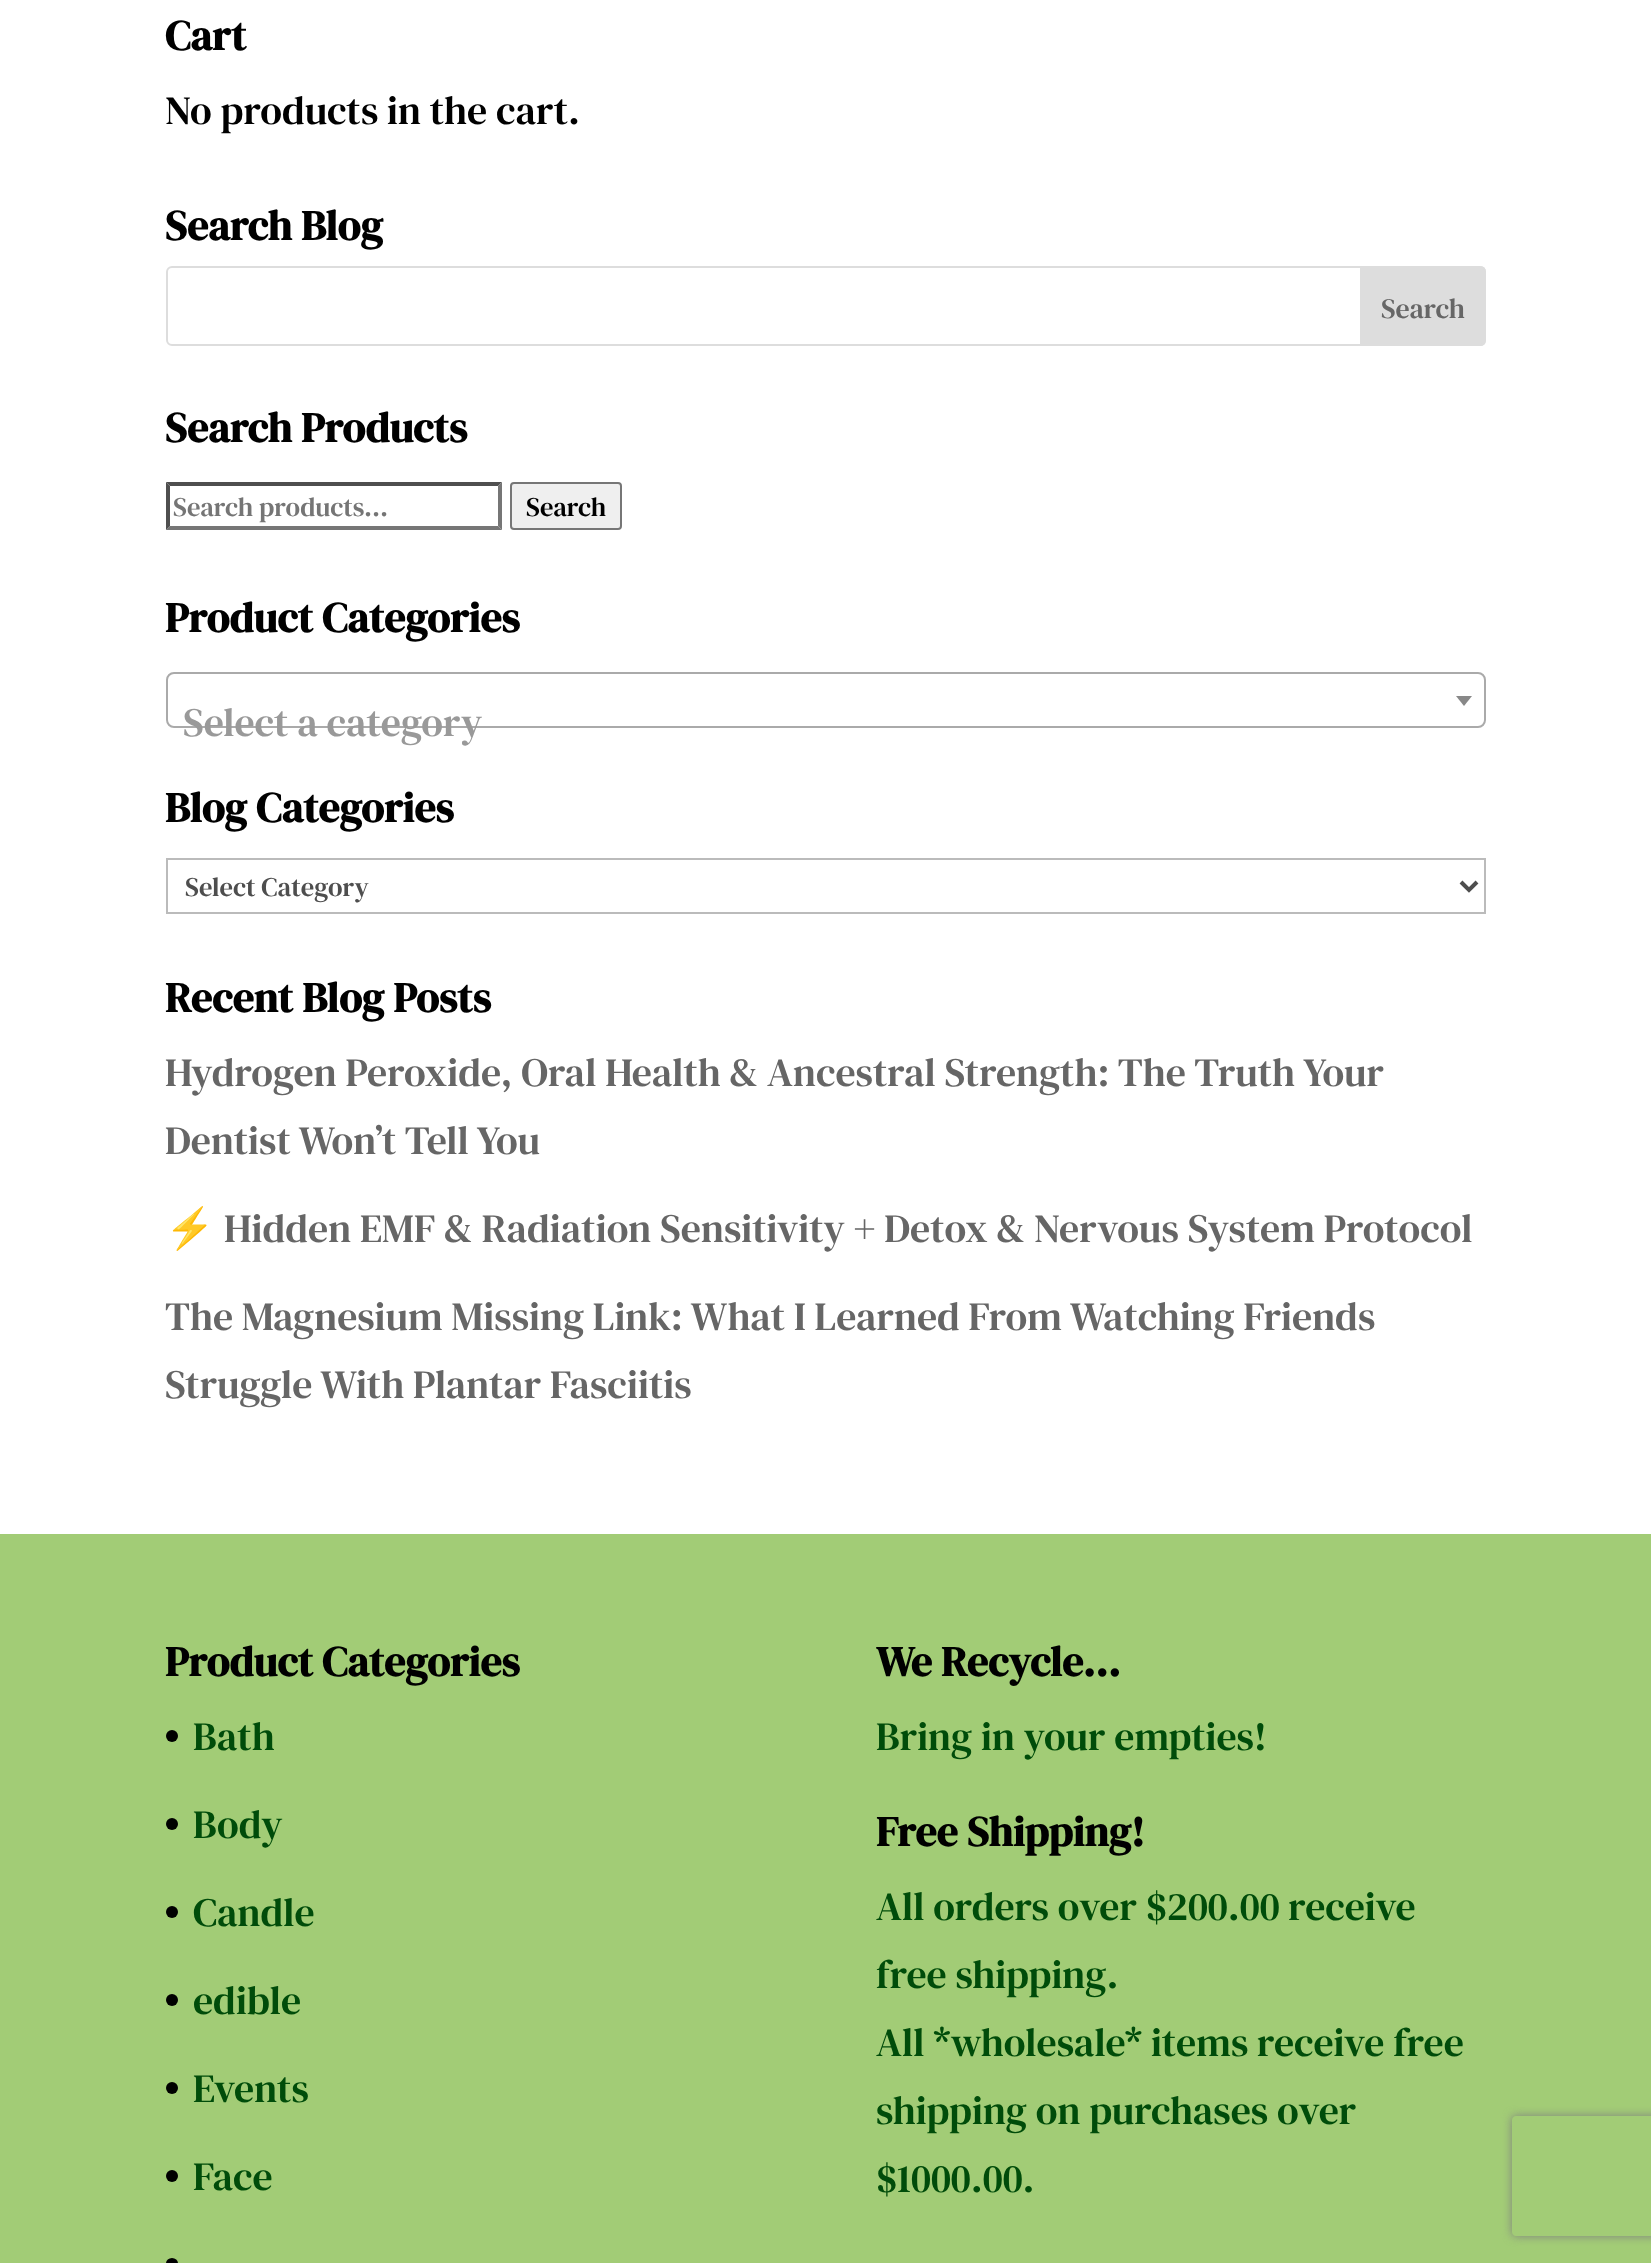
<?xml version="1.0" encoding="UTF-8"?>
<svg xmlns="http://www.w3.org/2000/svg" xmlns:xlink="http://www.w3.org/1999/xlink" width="1651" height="2263">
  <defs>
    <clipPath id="clip1"><path d="M 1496 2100 h 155 v 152 h -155 z m 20 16 h 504 c 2 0 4 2 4 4 v 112 c 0 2 -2 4 -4 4 h -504 c -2 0 -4 -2 -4 -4 v -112 c 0 -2 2 -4 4 -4 z" clip-rule="evenodd" /></clipPath>
  </defs>
  <rect width="100%" height="100%" fill="#ffffff" />
  <rect x="167" y="267" width="1318" height="78" rx="5" fill="none" stroke="#dddddd" stroke-width="2" />
  <path d="M 1361 267 h 119 c 3 0 5 2 5 5 v 68 c 0 3 -2 5 -5 5 h -119 z" fill="#dddddd" stroke="#dddddd" stroke-width="2" />
  <path d="M 166 482 h 336 l -4 4 h -328 z" fill="#4f4f4f" />
  <path d="M 502 482 v 48 l -4 -4 v -40 z" fill="#767676" />
  <path d="M 502 530 h -336 l 4 -4 h 328 z" fill="#767676" />
  <path d="M 166 530 v -48 l 4 4 v 40 z" fill="#4f4f4f" />
  <rect x="511" y="483" width="110" height="46" rx="3" fill="#efefef" stroke="#767676" stroke-width="2" />
  <rect x="167" y="673" width="1318" height="54" rx="7" fill="none" stroke="#aaaaaa" stroke-width="2" />
  <path d="M 1456 696 h 16 l -8 10 z" fill="#888888" />
  <rect x="167" y="859" width="1318" height="54" fill="none" stroke="#bbbbbb" stroke-width="2" />
  <path d="M 1461 882 l 8 8 l 8 -8" fill="none" stroke="#4e4e4e" stroke-width="4" />
  <rect y="1534" width="1651" height="729" fill="#a2cc76" />
  <circle cx="172" cy="1736" r="6" fill="#000000" />
  <circle cx="172" cy="1824" r="6" fill="#000000" />
  <circle cx="172" cy="1912" r="6" fill="#000000" />
  <circle cx="172" cy="2000" r="6" fill="#000000" />
  <circle cx="172" cy="2088" r="6" fill="#000000" />
  <circle cx="172" cy="2176" r="6" fill="#000000" />
  <rect x="166" y="2258" width="12" height="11" rx="6" fill="#000000" />
  <g clip-path="url(#clip1)">
    <rect x="1512" y="2116" width="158" height="120" rx="4" fill="#808080" filter="blur(5px)" />
  </g>
  <text x="165" y="50" style="font-family: DM Serif Display; font-size: 42px; font-weight: bold; fill: #000000">Cart</text>
  <text x="165" y="124" style="font-family: DM Serif Text; font-size: 40px; fill: #000000">No products in the cart.</text>
  <text x="165" y="240" style="font-family: DM Serif Display; font-size: 42px; font-weight: bold; fill: #000000">Search Blog</text>
  <text x="1381" y="318" style="font-family: DM Serif Text; font-size: 28px; fill: #666666">Search</text>
  <text x="165" y="442" style="font-family: DM Serif Display; font-size: 42px; font-weight: bold; fill: #000000">Search Products</text>
  <text x="173" y="516" style="font-family: DM Serif Text; font-size: 26.75px; fill: #757575">Search products…</text>
  <text x="526" y="516" style="font-family: DM Serif Text; font-size: 26.75px; fill: #000000">Search</text>
  <text x="165" y="632" style="font-family: DM Serif Display; font-size: 42px; font-weight: bold; fill: #000000">Product Categories</text>
  <text x="183" y="736" style="font-family: DM Serif Text; font-size: 40px; fill: #999999">Select a category</text>
  <text x="165" y="822" style="font-family: DM Serif Display; font-size: 42px; font-weight: bold; fill: #000000">Blog Categories</text>
  <text x="185" y="896" style="font-family: DM Serif Text; font-size: 26.75px; fill: #4e4e4e">Select Category</text>
  <text x="165" y="1012" style="font-family: DM Serif Display; font-size: 42px; font-weight: bold; fill: #000000">Recent Blog Posts</text>
  <text x="165" y="1086" style="font-family: DM Serif Text; font-size: 40px; fill: #666666">Hydrogen Peroxide, Oral Health &amp; Ancestral Strength: The Truth Your</text>
  <text x="165" y="1154" style="font-family: DM Serif Text; font-size: 40px; fill: #666666">Dentist Won’t Tell You</text>
  <text x="165" y="1242" style="font-family: Noto Color Emoji; font-size: 40px; fill: #666666">⚡</text>
  <text x="224" y="1242" style="font-family: DM Serif Text; font-size: 40px; fill: #666666">Hidden EMF &amp; Radiation Sensitivity + Detox &amp; Nervous System Protocol</text>
  <text x="165" y="1330" style="font-family: DM Serif Text; font-size: 40px; fill: #666666">The Magnesium Missing Link: What I Learned From Watching Friends</text>
  <text x="165" y="1398" style="font-family: DM Serif Text; font-size: 40px; fill: #666666">Struggle With Plantar Fasciitis</text>
  <text x="165" y="1676" style="font-family: DM Serif Display; font-size: 42px; font-weight: bold; fill: #000000">Product Categories</text>
  <text x="193" y="1750" style="font-family: DM Serif Text; font-size: 40px; fill: #004c0a">Bath</text>
  <text x="193" y="1838" style="font-family: DM Serif Text; font-size: 40px; fill: #004c0a">Body</text>
  <text x="193" y="1926" style="font-family: DM Serif Text; font-size: 40px; fill: #004c0a">Candle</text>
  <text x="193" y="2014" style="font-family: DM Serif Text; font-size: 40px; fill: #004c0a">edible</text>
  <text x="193" y="2102" style="font-family: DM Serif Text; font-size: 40px; fill: #004c0a">Events</text>
  <text x="193" y="2190" style="font-family: DM Serif Text; font-size: 40px; fill: #004c0a">Face</text>
  <text x="876" y="1676" style="font-family: DM Serif Display; font-size: 42px; font-weight: bold; fill: #000000">We Recycle…</text>
  <text x="876" y="1750" style="font-family: DM Serif Text; font-size: 40px; fill: #004c0a">Bring in your empties!</text>
  <text x="876" y="1846" style="font-family: DM Serif Display; font-size: 42px; font-weight: bold; fill: #000000">Free Shipping!</text>
  <text x="876" y="1920" style="font-family: DM Serif Text; font-size: 40px; fill: #004c0a">All orders over $200.00 receive</text>
  <text x="876" y="1988" style="font-family: DM Serif Text; font-size: 40px; fill: #004c0a">free shipping.</text>
  <text x="876" y="2056" style="font-family: DM Serif Text; font-size: 40px; fill: #004c0a">All *wholesale* items receive free</text>
  <text x="876" y="2124" style="font-family: DM Serif Text; font-size: 40px; fill: #004c0a">shipping on purchases over</text>
  <text x="876" y="2192" style="font-family: DM Serif Text; font-size: 40px; fill: #004c0a">$1000.00.</text>
</svg>
